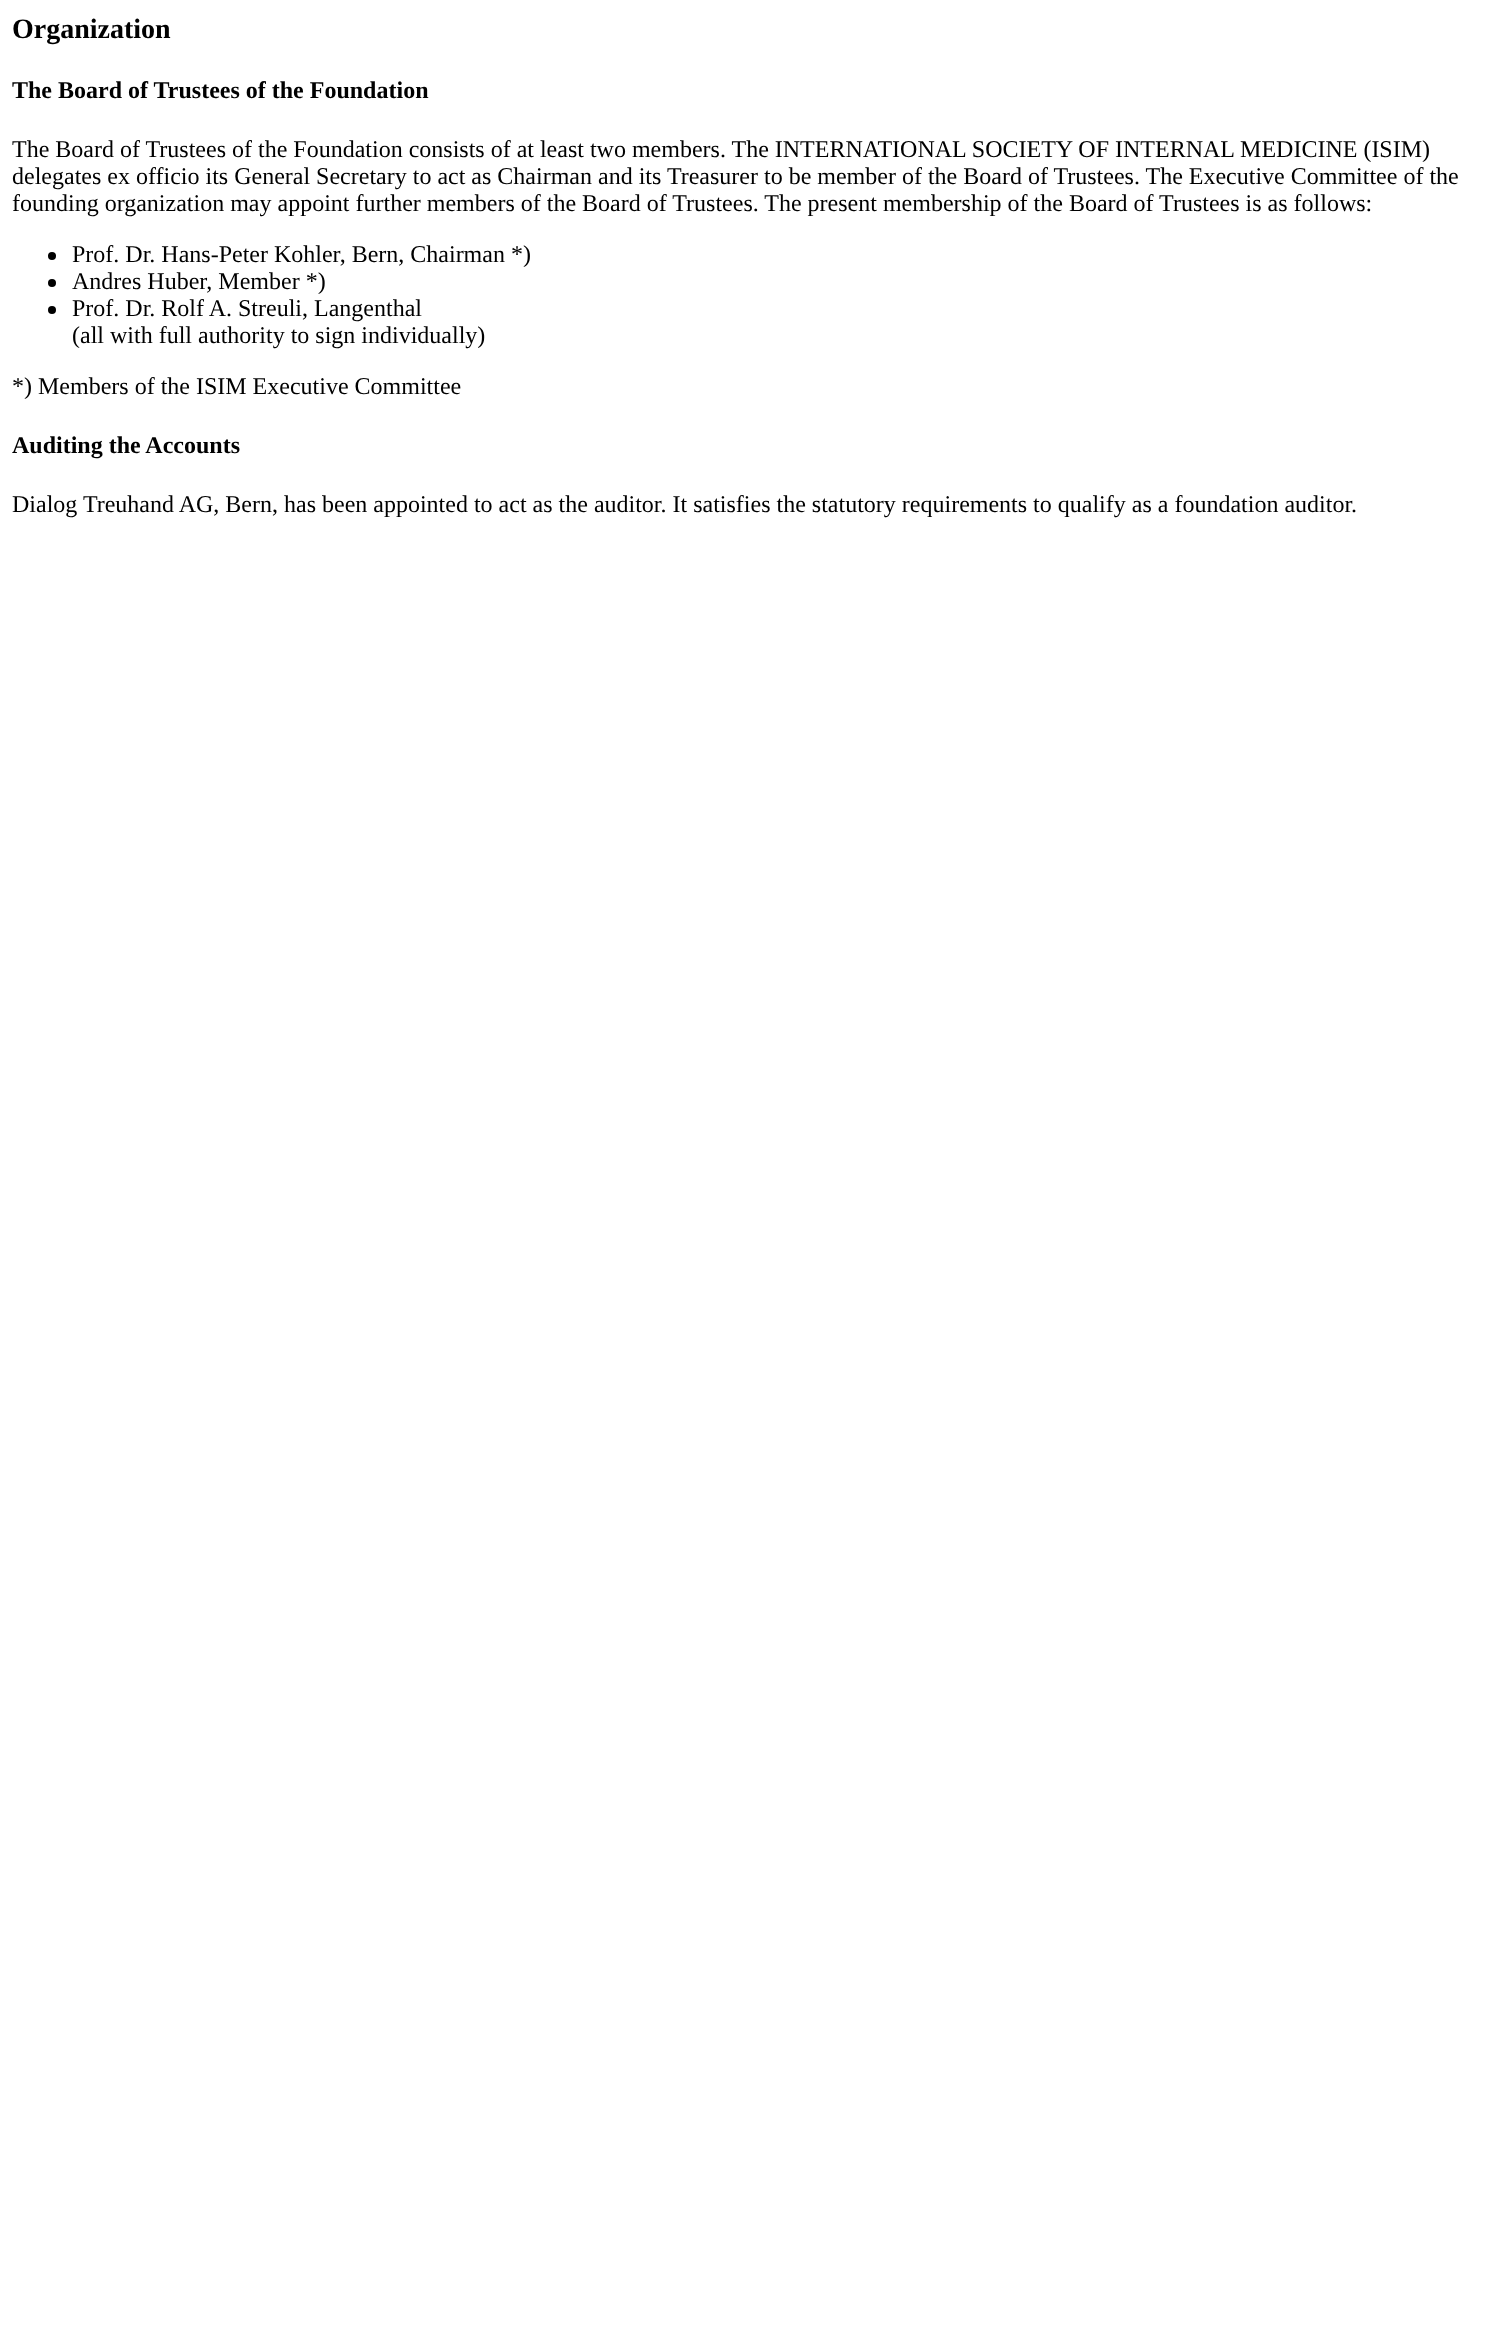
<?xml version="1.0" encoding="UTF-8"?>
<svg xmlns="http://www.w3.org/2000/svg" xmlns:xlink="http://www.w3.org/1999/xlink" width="1500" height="2345">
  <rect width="100%" height="100%" fill="#ffffff" />
  <circle cx="52" cy="256" r="4" fill="#000000" />
  <circle cx="52" cy="283" r="4" fill="#000000" />
  <circle cx="52" cy="310" r="4" fill="#000000" />
  <text x="12" y="38" style="font-family: Liberation Serif; font-size: 28px; font-weight: bold; fill: #000000">Organization</text>
  <text x="12" y="98" style="font-family: Liberation Serif; font-size: 24px; font-weight: bold; fill: #000000">The Board of Trustees of the Foundation</text>
  <text x="12" y="157" style="font-family: Liberation Serif; font-size: 24px; fill: #000000">The Board of Trustees of the Foundation consists of at least two members. The INTERNATIONAL SOCIETY OF INTERNAL MEDICINE (ISIM)</text>
  <text x="12" y="184" style="font-family: Liberation Serif; font-size: 24px; fill: #000000">delegates ex officio its General Secretary to act as Chairman and its Treasurer to be member of the Board of Trustees. The Executive Committee of the</text>
  <text x="12" y="211" style="font-family: Liberation Serif; font-size: 24px; fill: #000000">founding organization may appoint further members of the Board of Trustees. The present membership of the Board of Trustees is as follows:</text>
  <text x="72" y="262" style="font-family: Liberation Serif; font-size: 24px; fill: #000000">Prof. Dr. Hans-Peter Kohler, Bern, Chairman *)</text>
  <text x="72" y="289" style="font-family: Liberation Serif; font-size: 24px; fill: #000000">Andres Huber, Member *)</text>
  <text x="72" y="316" style="font-family: Liberation Serif; font-size: 24px; fill: #000000">Prof. Dr. Rolf A. Streuli, Langenthal</text>
  <text x="72" y="343" style="font-family: Liberation Serif; font-size: 24px; fill: #000000">(all with full authority to sign individually)</text>
  <text x="12" y="394" style="font-family: Liberation Serif; font-size: 24px; fill: #000000">*) Members of the ISIM Executive Committee</text>
  <text x="12" y="453" style="font-family: Liberation Serif; font-size: 24px; font-weight: bold; fill: #000000">Auditing the Accounts</text>
  <text x="12" y="512" style="font-family: Liberation Serif; font-size: 24px; fill: #000000">Dialog Treuhand AG, Bern, has been appointed to act as the auditor. It satisfies the statutory requirements to qualify as a foundation auditor.</text>
</svg>
